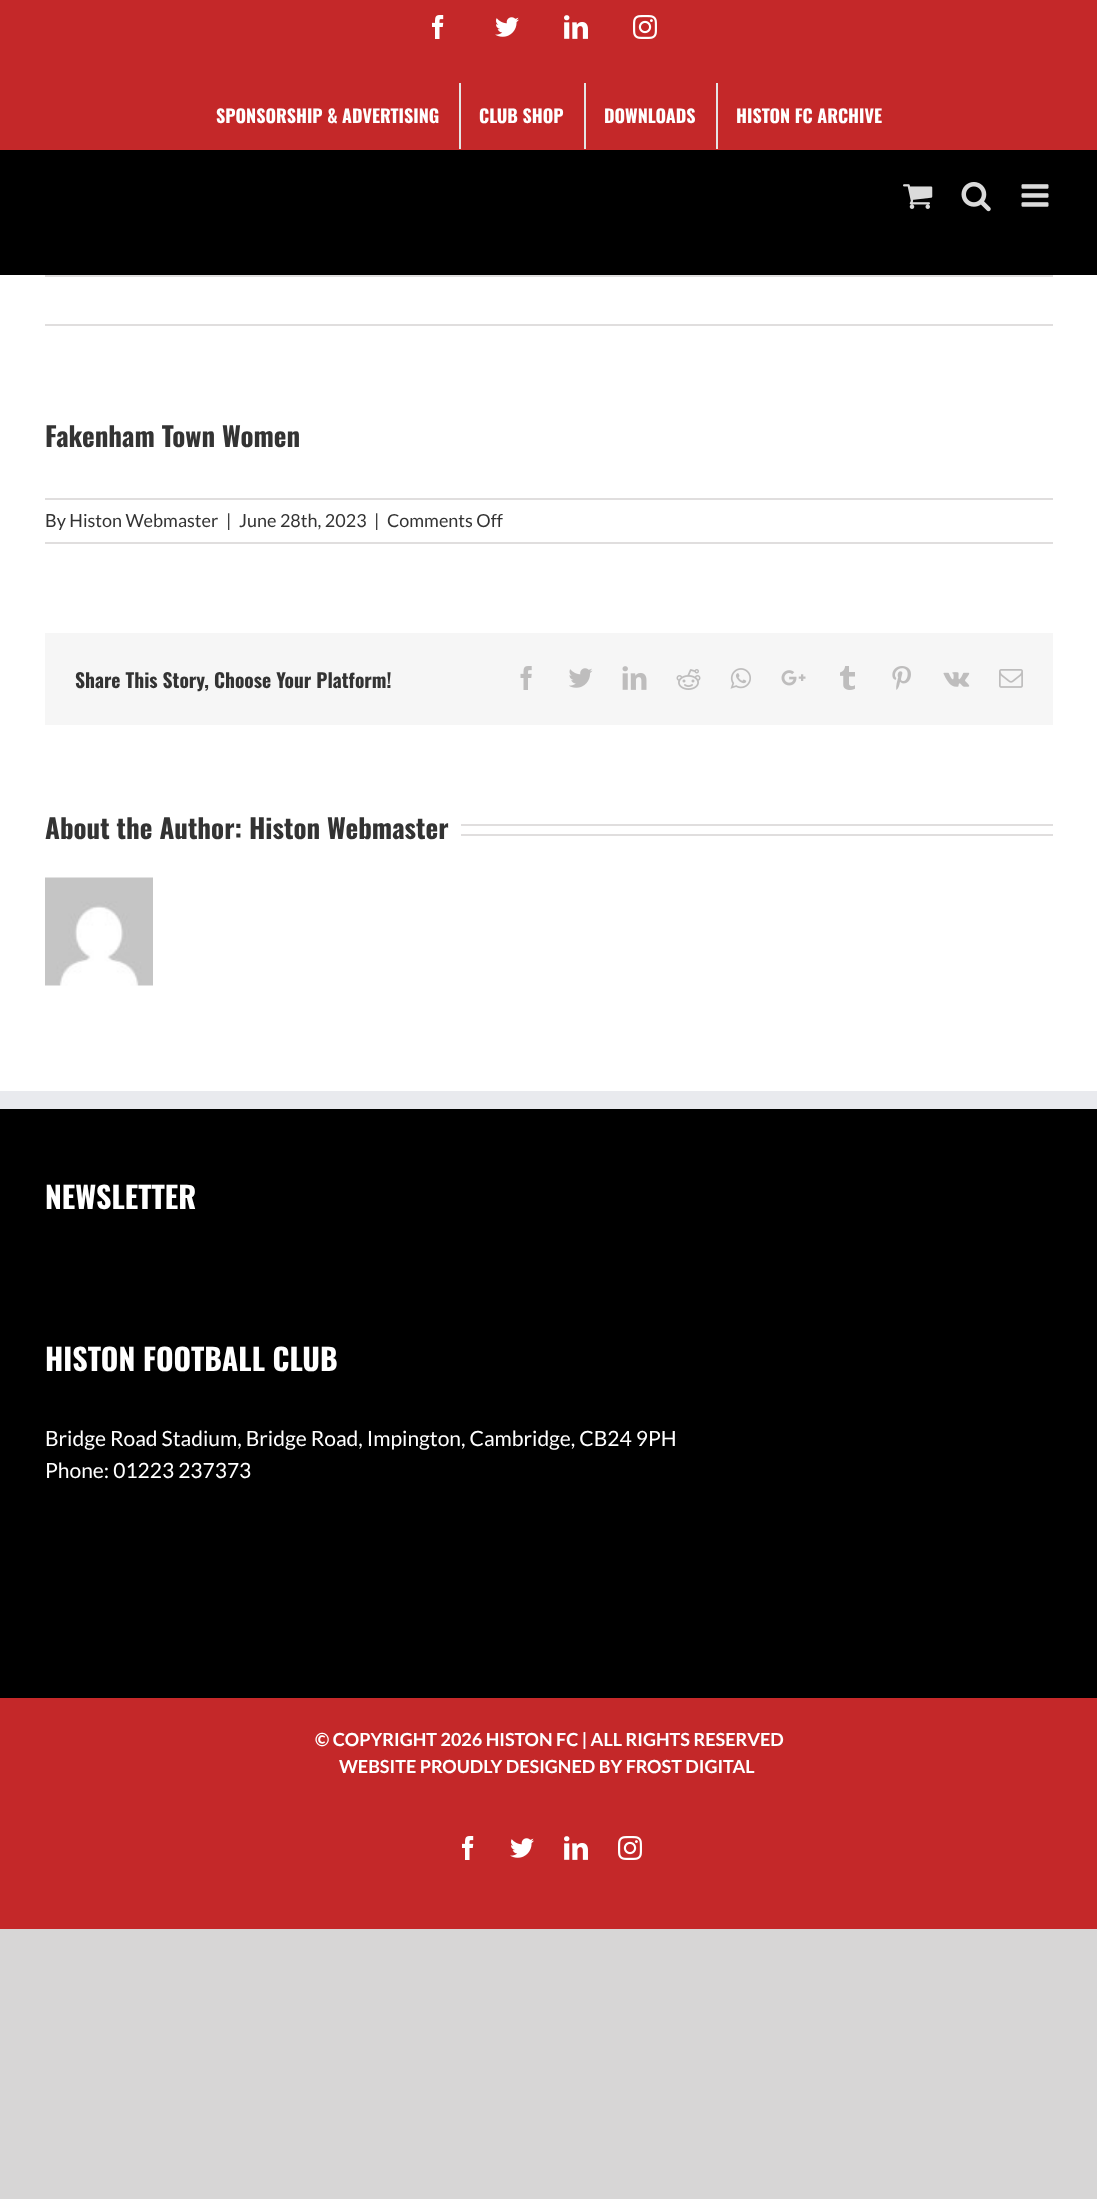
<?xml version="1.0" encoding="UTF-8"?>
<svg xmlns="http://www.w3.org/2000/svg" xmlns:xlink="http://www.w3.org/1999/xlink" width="1097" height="2199">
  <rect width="100%" height="100%" fill="#d7d6d6" />
  <rect y="275" width="1097" height="816" fill="#ffffff" />
  <rect width="1097" height="150" fill="#c42829" />
  <image x="432" y="15" width="12" height="24" xlink:href="image1.png" />
  <image x="495" y="17" width="24" height="20" xlink:href="image2.png" />
  <image x="564" y="15" width="24" height="24" xlink:href="image3.png" />
  <image x="633" y="15" width="24" height="24" xlink:href="image4.png" />
  <rect x="459" y="83" width="2" height="66" fill="#e5e5e5" />
  <rect x="584" y="83" width="2" height="66" fill="#e5e5e5" />
  <rect x="716" y="83" width="2" height="66" fill="#e5e5e5" />
  <rect y="150" width="1097" height="125" fill="#000000" />
  <image x="903" y="184" width="30" height="25" xlink:href="image5.png" />
  <image x="961" y="182" width="30" height="30" xlink:href="image6.png" />
  <image x="1021" y="184" width="28" height="23" xlink:href="image7.png" />
  <rect x="45" y="275" width="1008" height="2" fill="#e0dede" />
  <rect x="45" y="324" width="1008" height="2" fill="#e0dede" />
  <rect x="45" y="498" width="1008" height="2" fill="#e0dede" />
  <rect x="45" y="542" width="1008" height="2" fill="#e0dede" />
  <rect x="45" y="633" width="1008" height="92" fill="#f6f6f6" />
  <image x="520" y="666" width="12" height="24" xlink:href="image8.png" />
  <image x="569" y="668" width="24" height="20" xlink:href="image9.png" />
  <image x="622" y="666" width="25" height="24" xlink:href="image10.png" />
  <image x="676" y="669" width="25" height="21" xlink:href="image11.png" />
  <image x="730" y="668" width="21" height="21" xlink:href="image12.png" />
  <image x="781" y="670" width="25" height="16" xlink:href="image13.png" />
  <image x="840" y="666" width="15" height="24" xlink:href="image14.png" />
  <image x="892" y="666" width="19" height="24" xlink:href="image15.png" />
  <image x="943" y="672" width="27" height="15" xlink:href="image16.png" />
  <image x="999" y="669" width="24" height="19" xlink:href="image17.png" />
  <rect x="461" y="824" width="592" height="2" fill="#e0dede" />
  <rect x="461" y="834" width="592" height="2" fill="#e0dede" />
  <image x="45" y="877" width="108" height="109" xlink:href="image18.png" />
  <rect y="1109" width="1097" height="589" fill="#000000" />
  <rect y="1091" width="1097" height="18" fill="#e9eaee" />
  <rect y="1698" width="1097" height="231" fill="#c42829" />
  <image x="462" y="1836" width="12" height="24" xlink:href="image1.png" />
  <image x="510" y="1838" width="24" height="20" xlink:href="image2.png" />
  <image x="564" y="1836" width="24" height="24" xlink:href="image3.png" />
  <image x="618" y="1836" width="24" height="24" xlink:href="image4.png" />
  <text x="216" y="123" style="font-family: Oswald; font-size: 18px; font-weight: bold; fill: #ffffff">SPONSORSHIP &amp; ADVERTISING</text>
  <text x="479" y="123" style="font-family: Oswald; font-size: 18px; font-weight: bold; fill: #ffffff">CLUB SHOP</text>
  <text x="604" y="123" style="font-family: Oswald; font-size: 18px; font-weight: bold; fill: #ffffff">DOWNLOADS</text>
  <text x="736" y="123" style="font-family: Oswald; font-size: 18px; font-weight: bold; fill: #ffffff">HISTON FC ARCHIVE</text>
  <text x="45" y="447" style="font-family: Oswald; font-size: 27px; font-weight: bold; fill: #333333">Fakenham Town Women</text>
  <text x="45" y="527" style="font-family: Lato; font-size: 18px; fill: #333333">By Histon Webmaster</text>
  <text x="226" y="527" style="font-family: Lato; font-size: 18px; fill: #333333">|</text>
  <text x="239" y="527" style="font-family: Lato; font-size: 18px; fill: #333333">June 28th, 2023</text>
  <text x="374" y="527" style="font-family: Lato; font-size: 18px; fill: #333333">|</text>
  <text x="387" y="527" style="font-family: Lato; font-size: 18px; fill: #333333">Comments Off</text>
  <text x="75" y="688" style="font-family: Oswald; font-size: 19.5px; font-weight: bold; fill: #333333">Share This Story, Choose Your Platform!</text>
  <text x="45" y="839" style="font-family: Oswald; font-size: 27px; font-weight: bold; fill: #333333">About the Author: Histon Webmaster</text>
  <text x="45" y="1209" style="font-family: Oswald; font-size: 30px; font-weight: bold; fill: #ffffff">NEWSLETTER</text>
  <text x="45" y="1371" style="font-family: Oswald; font-size: 30px; font-weight: bold; fill: #ffffff">HISTON FOOTBALL CLUB</text>
  <text x="45" y="1446" style="font-family: Lato; font-size: 21px; fill: #ffffff">Bridge Road Stadium, Bridge Road, Impington, Cambridge, CB24 9PH</text>
  <text x="45" y="1478" style="font-family: Lato; font-size: 21px; fill: #ffffff">Phone: 01223 237373</text>
  <text x="315" y="1746" style="font-family: Lato; font-size: 18px; font-weight: bold; fill: #ffffff">© COPYRIGHT 2026 HISTON FC | ALL RIGHTS RESERVED</text>
  <text x="339" y="1773" style="font-family: Lato; font-size: 18px; font-weight: bold; fill: #ffffff">WEBSITE PROUDLY DESIGNED BY FROST DIGITAL</text>
</svg>
